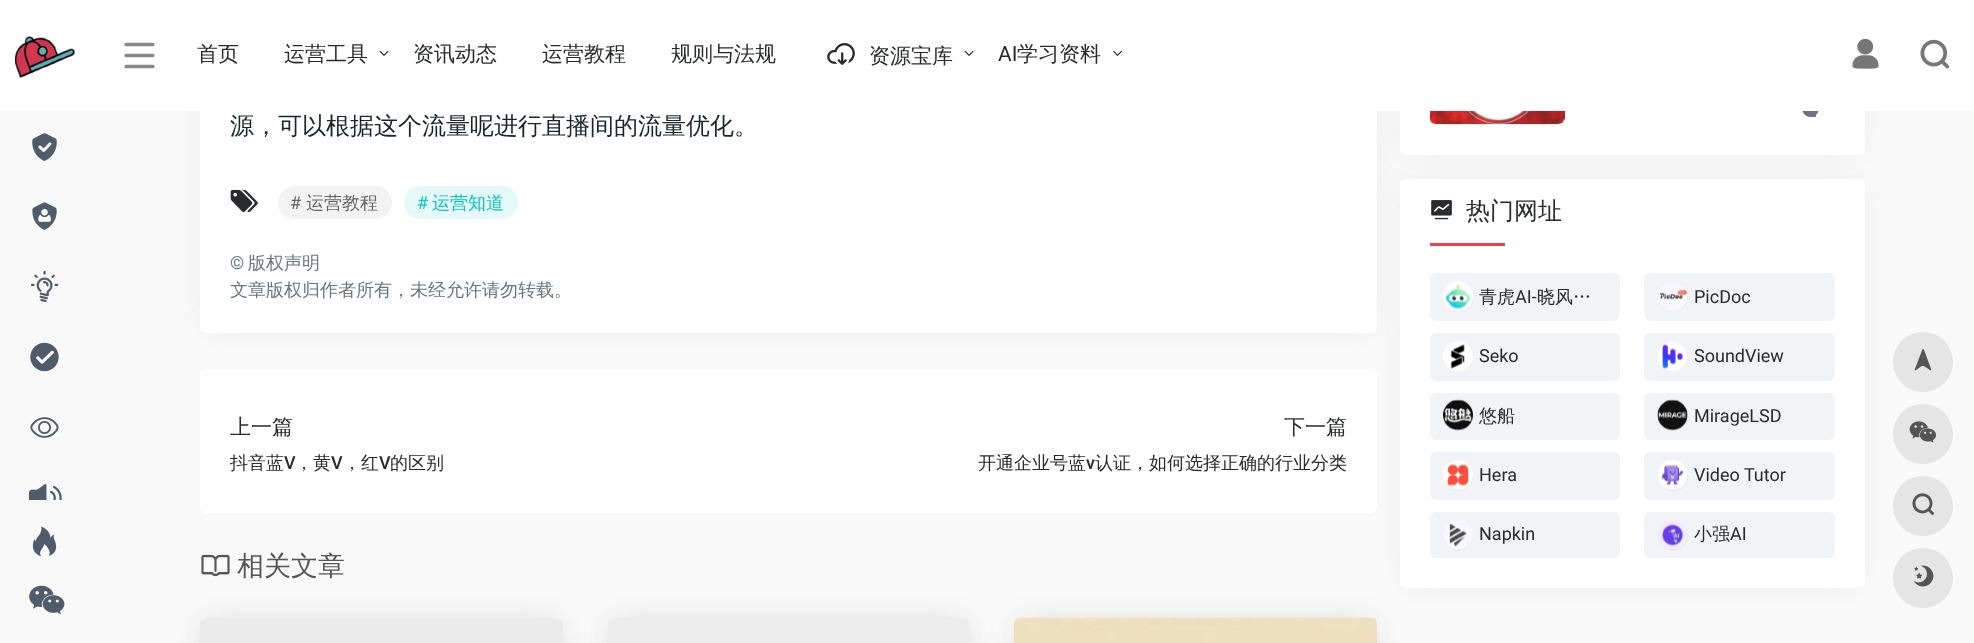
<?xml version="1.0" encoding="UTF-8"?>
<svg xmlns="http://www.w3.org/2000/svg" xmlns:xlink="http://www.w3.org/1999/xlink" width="1974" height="643">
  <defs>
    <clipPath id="clip1"><path d="M 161 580 h 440 v 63 h -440 z m 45 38 h 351 c 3.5 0 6 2.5 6 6 v 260 c 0 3.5 -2.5 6 -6 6 h -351 c -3.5 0 -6 -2.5 -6 -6 v -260 c 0 -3.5 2.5 -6 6 -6 z" clip-rule="evenodd" /></clipPath>
  </defs>
  <rect width="100%" height="100%" fill="#f9f9f9" />
  <rect x="200" y="369" width="1177" height="144" rx="6" fill="#ffffff" />
  <rect x="207" y="-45" width="1163" height="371" fill="#9e9e9e" fill-opacity="0.2" filter="blur(15px)" />
  <rect x="200" y="-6" width="1177" height="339" rx="6" fill="#ffffff" />
  <rect x="1407" y="-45" width="450" height="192" fill="#9e9e9e" fill-opacity="0.2" filter="blur(15px)" />
  <rect x="1400" y="-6" width="465" height="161" rx="6" fill="#ffffff" />
  <rect x="1430" y="26" width="135" height="99" rx="6" fill="#f2f2f2" />
  <rect width="1974" height="111" fill="#ffffff" />
  <image x="15" y="36" width="60" height="42" xlink:href="image1.png" />
  <image x="32" y="133" width="25" height="28" xlink:href="image2.png" />
  <image x="32" y="202" width="25" height="28" xlink:href="image3.png" />
  <image x="30" y="270" width="29" height="33" xlink:href="image4.png" />
  <image x="30" y="342" width="29" height="30" xlink:href="image5.png" />
  <image x="30" y="417" width="29" height="21" xlink:href="image6.png" />
  <image x="28" y="484" width="34" height="16" xlink:href="image7.png" />
  <image x="32" y="526" width="25" height="31" xlink:href="image8.png" />
  <image x="29" y="585" width="36" height="30" xlink:href="image9.png" />
  <path d="M 126 44.5 h 27 m -27 11 h 27 m -27 11 h 27" fill="none" stroke="#888888" stroke-width="3.3" stroke-linecap="round" stroke-linejoin="round" />
  <image x="379" y="50" width="10" height="6" xlink:href="image10.png" />
  <image x="827" y="43" width="28" height="22" xlink:href="image11.png" />
  <image x="964" y="50" width="10" height="6" xlink:href="image12.png" />
  <image x="1113" y="50" width="9" height="6" xlink:href="image13.png" />
  <image x="1852" y="38" width="27" height="31" xlink:href="image14.png" />
  <image x="1920" y="39" width="30" height="30" xlink:href="image15.png" />
  <image x="230" y="189" width="28" height="23" xlink:href="image16.png" />
  <rect x="278" y="186" width="114" height="33" rx="16.5" fill="#f3f3f3" />
  <rect x="404" y="186" width="114" height="33" rx="16.5" fill="#e6f9f9" />
  <image x="201" y="554" width="29" height="23" xlink:href="image17.png" />
  <g clip-path="url(#clip1)">
    <rect x="207" y="626" width="348" height="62" fill="#141414" fill-opacity="0.2" filter="blur(15px)" />
  </g>
  <rect x="200" y="618" width="363" height="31" rx="6" fill="#787878" fill-opacity="0.1" />
  <rect x="615" y="626" width="347" height="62" fill="#141414" fill-opacity="0.2" filter="blur(15px)" />
  <rect x="608" y="618" width="361" height="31" rx="6" fill="#ececec" />
  <rect x="1022" y="626" width="348" height="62" fill="#141414" fill-opacity="0.2" filter="blur(15px)" />
  <image x="1014" y="617" width="363" height="26" xlink:href="image18.png" />
  <image x="1430" y="111" width="135" height="13" xlink:href="image19.png" />
  <image x="1802" y="111" width="17" height="6" xlink:href="image20.png" />
  <rect x="1407" y="186" width="450" height="395" fill="#9e9e9e" fill-opacity="0.2" filter="blur(15px)" />
  <rect x="1400" y="179" width="465" height="409" rx="6" fill="#ffffff" />
  <image x="1431" y="200" width="21" height="20" xlink:href="image21.png" />
  <rect x="1430" y="243" width="75" height="3" fill="#f1404b" />
  <rect x="1431" y="274" width="188" height="46" rx="5" fill="#f1f3f6" stroke="#f1f3f6" stroke-width="2" />
  <circle cx="1458" cy="297" r="15" fill="#e6e8ea" />
  <image x="1443" y="281" width="30" height="31" xlink:href="image22.png" />
  <rect x="1645" y="274" width="189" height="46" rx="5" fill="#f1f3f6" stroke="#f1f3f6" stroke-width="2" />
  <circle cx="1673" cy="297" r="15" fill="#e6e8ea" />
  <image x="1658" y="281" width="30" height="31" xlink:href="image23.png" />
  <rect x="1431" y="334" width="188" height="46" rx="5" fill="#f1f3f6" stroke="#f1f3f6" stroke-width="2" />
  <circle cx="1458" cy="357" r="15" fill="#e6e8ea" />
  <image x="1443" y="341" width="30" height="31" xlink:href="image24.png" />
  <rect x="1645" y="334" width="189" height="46" rx="5" fill="#f1f3f6" stroke="#f1f3f6" stroke-width="2" />
  <circle cx="1673" cy="357" r="15" fill="#e6e8ea" />
  <image x="1658" y="341" width="30" height="31" xlink:href="image25.png" />
  <rect x="1431" y="394" width="188" height="45" rx="5" fill="#f1f3f6" stroke="#f1f3f6" stroke-width="2" />
  <circle cx="1458" cy="416" r="15" fill="#e6e8ea" />
  <image x="1443" y="399" width="30" height="32" xlink:href="image26.png" />
  <rect x="1645" y="394" width="189" height="45" rx="5" fill="#f1f3f6" stroke="#f1f3f6" stroke-width="2" />
  <circle cx="1673" cy="416" r="15" fill="#e6e8ea" />
  <image x="1657" y="399" width="31" height="32" xlink:href="image27.png" />
  <rect x="1431" y="453" width="188" height="46" rx="5" fill="#f1f3f6" stroke="#f1f3f6" stroke-width="2" />
  <circle cx="1458" cy="476" r="15" fill="#e6e8ea" />
  <image x="1443" y="460" width="30" height="30" xlink:href="image28.png" />
  <rect x="1645" y="453" width="189" height="46" rx="5" fill="#f1f3f6" stroke="#f1f3f6" stroke-width="2" />
  <circle cx="1673" cy="476" r="15" fill="#e6e8ea" />
  <image x="1658" y="460" width="30" height="30" xlink:href="image29.png" />
  <rect x="1431" y="513" width="188" height="44" rx="5" fill="#f1f3f6" stroke="#f1f3f6" stroke-width="2" />
  <circle cx="1458" cy="536" r="15" fill="#e6e8ea" />
  <image x="1443" y="520" width="30" height="30" xlink:href="image30.png" />
  <rect x="1645" y="513" width="189" height="44" rx="5" fill="#f1f3f6" stroke="#f1f3f6" stroke-width="2" />
  <circle cx="1673" cy="536" r="15" fill="#e6e8ea" />
  <image x="1658" y="520" width="30" height="30" xlink:href="image31.png" />
  <circle cx="1923" cy="362" r="30" fill="#e5e5e5" />
  <image x="1914" y="349" width="18" height="22" xlink:href="image32.png" />
  <circle cx="1923" cy="434" r="30" fill="#e5e5e5" />
  <image x="1909" y="421" width="27" height="22" xlink:href="image33.png" />
  <circle cx="1923" cy="506" r="30" fill="#e5e5e5" />
  <image x="1912" y="493" width="22" height="22" xlink:href="image34.png" />
  <circle cx="1923" cy="578" r="30" fill="#e5e5e5" />
  <image x="1914" y="565" width="20" height="22" xlink:href="image35.png" />
  <text x="197" y="61" style="font-family: WenQuanYi Zen Hei; font-size: 21px; font-weight: 500; fill: #282a2d">首页</text>
  <text x="284" y="61" style="font-family: WenQuanYi Zen Hei; font-size: 21px; font-weight: 500; fill: #282a2d">运营工具</text>
  <text x="413" y="61" style="font-family: WenQuanYi Zen Hei; font-size: 21px; font-weight: 500; fill: #282a2d">资讯动态</text>
  <text x="542" y="61" style="font-family: WenQuanYi Zen Hei; font-size: 21px; font-weight: 500; fill: #282a2d">运营教程</text>
  <text x="671" y="61" style="font-family: WenQuanYi Zen Hei; font-size: 21px; font-weight: 500; fill: #282a2d">规则与法规</text>
  <text x="869" y="63" style="font-family: WenQuanYi Zen Hei; font-size: 21px; font-weight: 500; fill: #282a2d">资源宝库</text>
  <text x="998" y="61" style="font-family: Roboto; font-size: 21px; fill: #282a2d">AI</text>
  <text x="1017" y="61" style="font-family: WenQuanYi Zen Hei; font-size: 21px; font-weight: 500; fill: #282a2d">学习资料</text>
  <text x="230" y="134" style="font-family: WenQuanYi Zen Hei; font-size: 24px; font-weight: 500; fill: #1d232b">源，可以根据这个流量呢进行直播间的流量优化。</text>
  <text x="290" y="209" style="font-family: Roboto; font-size: 18px; fill: #666666">#</text>
  <text x="306" y="209" style="font-family: WenQuanYi Zen Hei; font-size: 18px; font-weight: 500; fill: #666666">运营教程</text>
  <text x="417" y="209" style="font-family: Roboto; font-size: 18px; fill: #08c4c1">#</text>
  <text x="432" y="209" style="font-family: WenQuanYi Zen Hei; font-size: 18px; font-weight: 500; fill: #08c4c1">运营知道</text>
  <text x="230" y="269" style="font-family: Roboto; font-size: 18px; fill: #6c757d">©</text>
  <text x="248" y="269" style="font-family: WenQuanYi Zen Hei; font-size: 18px; font-weight: 500; fill: #6c757d">版权声明</text>
  <text x="230" y="296" style="font-family: WenQuanYi Zen Hei; font-size: 18px; font-weight: 500; fill: #6c757d">文章版权归作者所有，未经允许请勿转载。</text>
  <text x="230" y="434" style="font-family: WenQuanYi Zen Hei; font-size: 21px; font-weight: 500; fill: #282a2d">上一篇</text>
  <text x="230" y="469" style="font-family: WenQuanYi Zen Hei; font-size: 18px; font-weight: 500; fill: #282a2d">抖音蓝</text>
  <text x="284" y="469" style="font-family: Roboto; font-size: 18px; font-weight: 500; fill: #282a2d">V</text>
  <text x="295" y="469" style="font-family: WenQuanYi Zen Hei; font-size: 18px; font-weight: 500; fill: #282a2d">，黄</text>
  <text x="331" y="469" style="font-family: Roboto; font-size: 18px; font-weight: 500; fill: #282a2d">V</text>
  <text x="343" y="469" style="font-family: WenQuanYi Zen Hei; font-size: 18px; font-weight: 500; fill: #282a2d">，红</text>
  <text x="379" y="469" style="font-family: Roboto; font-size: 18px; font-weight: 500; fill: #282a2d">V</text>
  <text x="390" y="469" style="font-family: WenQuanYi Zen Hei; font-size: 18px; font-weight: 500; fill: #282a2d">的区别</text>
  <text x="1284" y="434" style="font-family: WenQuanYi Zen Hei; font-size: 21px; font-weight: 500; fill: #282a2d">下一篇</text>
  <text x="978" y="469" style="font-family: WenQuanYi Zen Hei; font-size: 18px; font-weight: 500; fill: #282a2d">开通企业号蓝</text>
  <text x="1086" y="469" style="font-family: Roboto; font-size: 18px; font-weight: 500; fill: #282a2d">v</text>
  <text x="1095" y="469" style="font-family: WenQuanYi Zen Hei; font-size: 18px; font-weight: 500; fill: #282a2d">认证，如何选择正确的行业分类</text>
  <text x="237" y="575" style="font-family: WenQuanYi Zen Hei; font-size: 27px; font-weight: 500; fill: #555555">相关文章</text>
  <text x="1466" y="219" style="font-family: WenQuanYi Zen Hei; font-size: 24px; font-weight: 500; fill: #282a2d">热门网址</text>
  <text x="1479" y="303" style="font-family: WenQuanYi Zen Hei; font-size: 18px; font-weight: 500; fill: #282a2d">青虎</text>
  <text x="1515" y="303" style="font-family: Roboto; font-size: 18px; fill: #282a2d">AI-</text>
  <text x="1537" y="303" style="font-family: WenQuanYi Zen Hei; font-size: 18px; font-weight: 500; fill: #282a2d">晓风…</text>
  <text x="1694" y="303" style="font-family: Roboto; font-size: 18px; fill: #282a2d">PicDoc</text>
  <text x="1479" y="362" style="font-family: Roboto; font-size: 18px; fill: #282a2d">Seko</text>
  <text x="1694" y="362" style="font-family: Roboto; font-size: 18px; fill: #282a2d">SoundView</text>
  <text x="1479" y="422" style="font-family: WenQuanYi Zen Hei; font-size: 18px; font-weight: 500; fill: #282a2d">悠船</text>
  <text x="1694" y="422" style="font-family: Roboto; font-size: 18px; fill: #282a2d">MirageLSD</text>
  <text x="1479" y="481" style="font-family: Roboto; font-size: 18px; fill: #282a2d">Hera</text>
  <text x="1694" y="481" style="font-family: Roboto; font-size: 18px; fill: #282a2d">Video Tutor</text>
  <text x="1479" y="540" style="font-family: Roboto; font-size: 18px; fill: #282a2d">Napkin</text>
  <text x="1694" y="540" style="font-family: WenQuanYi Zen Hei; font-size: 18px; font-weight: 500; fill: #282a2d">小强</text>
  <text x="1730" y="540" style="font-family: Roboto; font-size: 18px; fill: #282a2d">AI</text>
</svg>
